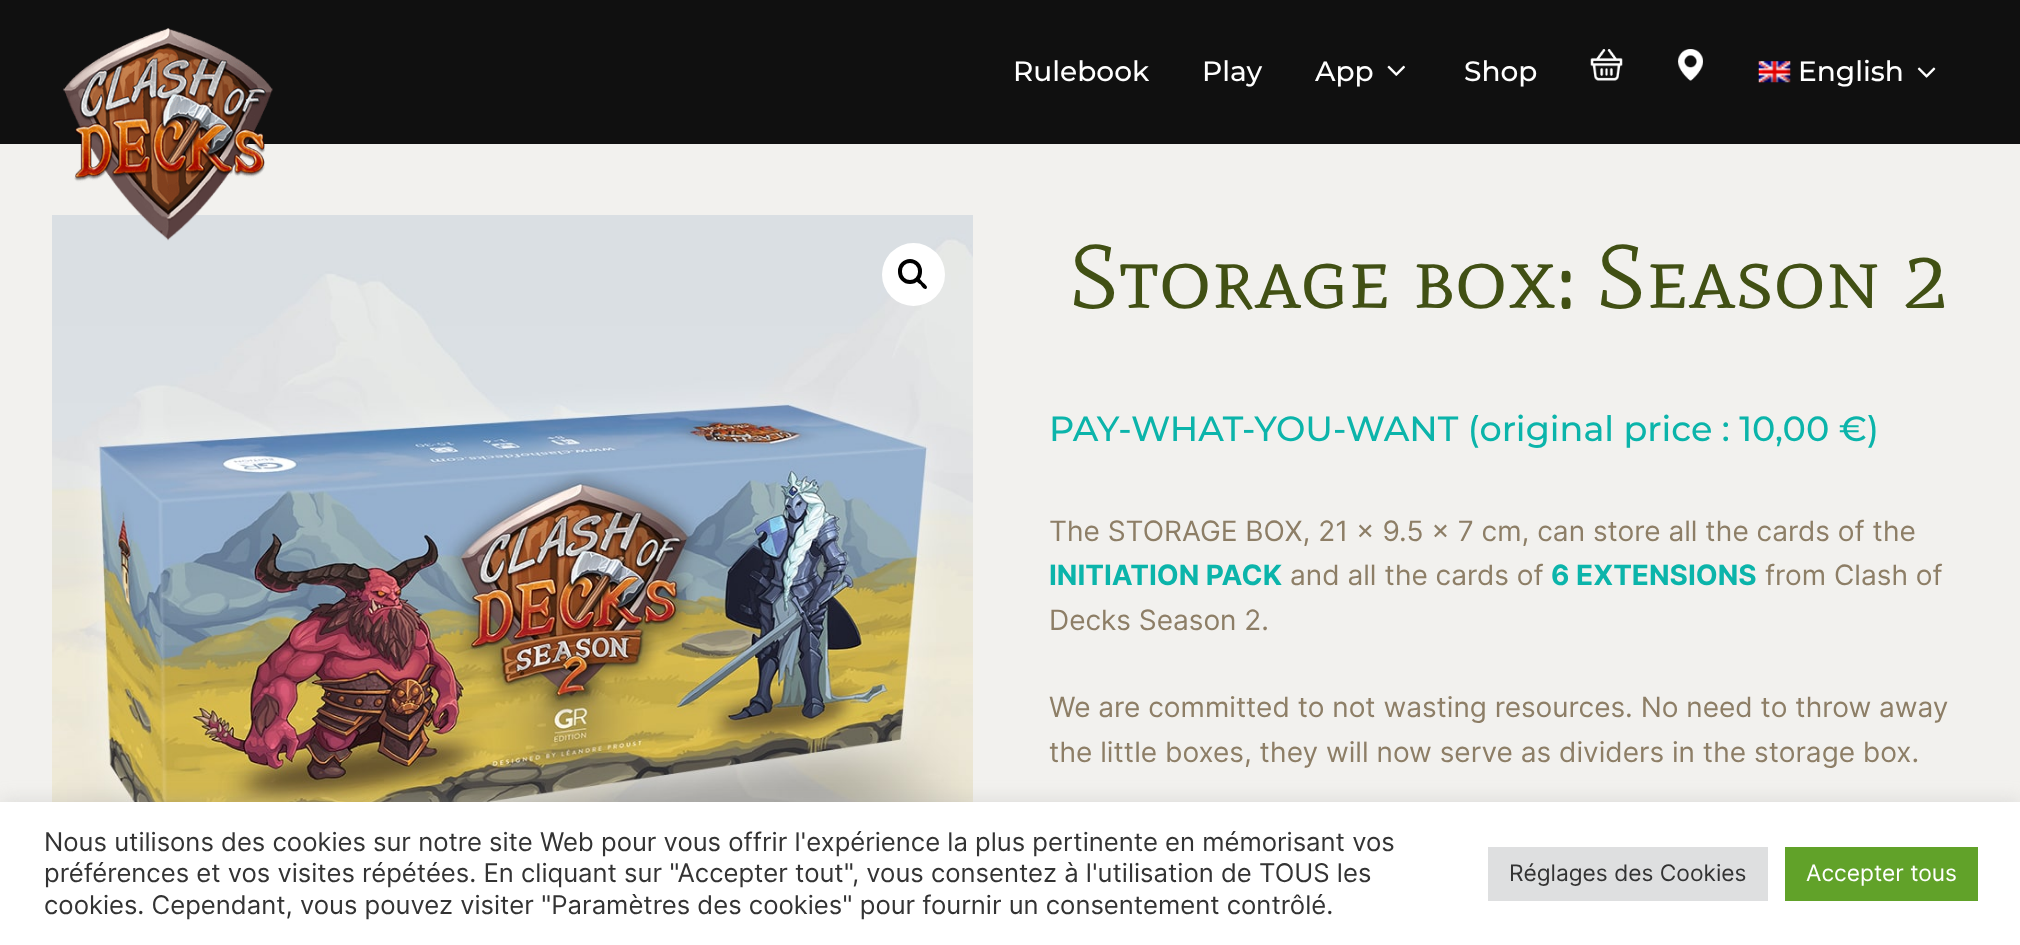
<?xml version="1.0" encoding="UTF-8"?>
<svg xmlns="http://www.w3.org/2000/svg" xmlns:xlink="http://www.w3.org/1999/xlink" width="2020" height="945">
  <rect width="100%" height="100%" fill="#f2f1ee" />
  <rect width="2020" height="144" fill="#101010" />
  <image x="52" y="215" width="921" height="587" xlink:href="image7.png" />
  <image x="63" y="28" width="210" height="213" xlink:href="image1.png" />
  <image x="1387" y="65" width="18" height="11" xlink:href="image2.png" />
  <image x="1590" y="49" width="33" height="32" xlink:href="image3.png" />
  <image x="1678" y="49" width="25" height="32" xlink:href="image4.png" />
  <image x="1758" y="61" width="33" height="22" xlink:href="image5.png" />
  <image x="1917" y="67" width="19" height="11" xlink:href="image6.png" />
  <circle cx="913.5" cy="274.5" r="31.5" fill="#ffffff" />
  <rect x="900" y="261" width="20" height="21" rx="10" fill="none" stroke="#000000" stroke-width="4" />
  <path d="M 916.5 278.5 c 2 -2 5 2.5 6.5 4 c 1 1 5.5 4 3.5 6 c -2 2 -5 -2.5 -6 -4 c -1.5 -1 -6 -4 -4 -6 z" fill="#000000" />
  <rect y="800" width="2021" height="143" fill="#acabab" fill-opacity="0.3" filter="blur(9px)" />
  <rect y="802" width="2020" height="143" fill="#ffffff" />
  <rect x="1488" y="847" width="280" height="54" fill="#dedfe0" />
  <rect x="1785" y="847" width="193" height="54" fill="#61a229" />
  <text x="1013" y="81" style="font-family: Montserrat; font-size: 28px; font-weight: 500; fill: #ffffff">Rulebook</text>
  <text x="1202" y="81" style="font-family: Montserrat; font-size: 28px; font-weight: 500; fill: #ffffff">Play</text>
  <text x="1315" y="81" style="font-family: Montserrat; font-size: 28px; font-weight: 500; fill: #ffffff">App</text>
  <text x="1464" y="81" style="font-family: Montserrat; font-size: 28px; font-weight: 500; fill: #ffffff">Shop</text>
  <text x="1798" y="81" style="font-family: Montserrat; font-size: 28px; font-weight: 500; fill: #ffffff">English</text>
  <text x="1069" y="308" style="font-family: Mate SC; font-size: 89.5px; fill: #415014">Storage box: Season 2</text>
  <text x="1049" y="441" style="font-family: Montserrat; font-size: 35px; font-weight: 500; fill: #0bb4aa">PAY-WHAT-YOU-WANT (original price : 10,00 €)</text>
  <text x="1049" y="541" style="font-family: Inter; font-size: 28px; fill: #8d7e66">The STORAGE BOX, 21 x 9.5 x 7 cm, can store all the cards of the</text>
  <text x="1049" y="585" style="font-family: Inter; font-size: 28px; font-weight: bold; fill: #0bb4aa">INITIATION PACK</text>
  <text x="1290" y="585" style="font-family: Inter; font-size: 28px; fill: #8d7e66">and all the cards of</text>
  <text x="1551" y="585" style="font-family: Inter; font-size: 28px; font-weight: bold; fill: #0bb4aa">6 EXTENSIONS</text>
  <text x="1765" y="585" style="font-family: Inter; font-size: 28px; fill: #8d7e66">from Clash of</text>
  <text x="1049" y="630" style="font-family: Inter; font-size: 28px; fill: #8d7e66">Decks Season 2.</text>
  <text x="1049" y="717" style="font-family: Inter; font-size: 28px; fill: #8d7e66">We are committed to not wasting resources. No need to throw away</text>
  <text x="1049" y="762" style="font-family: Inter; font-size: 28px; fill: #8d7e66">the little boxes, they will now serve as dividers in the storage box.</text>
  <text x="44" y="851" style="font-family: Inter; font-size: 25.67px; fill: #333333">Nous utilisons des cookies sur notre site Web pour vous offrir l'expérience la plus pertinente en mémorisant vos</text>
  <text x="44" y="882" style="font-family: Inter; font-size: 25.67px; fill: #333333">préférences et vos visites répétées. En cliquant sur "Accepter tout", vous consentez à l'utilisation de TOUS les</text>
  <text x="44" y="914" style="font-family: Inter; font-size: 25.67px; fill: #333333">cookies. Cependant, vous pouvez visiter "Paramètres des cookies" pour fournir un consentement contrôlé.</text>
  <text x="1509" y="881" style="font-family: Inter; font-size: 22.75px; fill: #333333">Réglages des Cookies</text>
  <text x="1806" y="881" style="font-family: Inter; font-size: 22.75px; fill: #ffffff">Accepter tous</text>
</svg>
